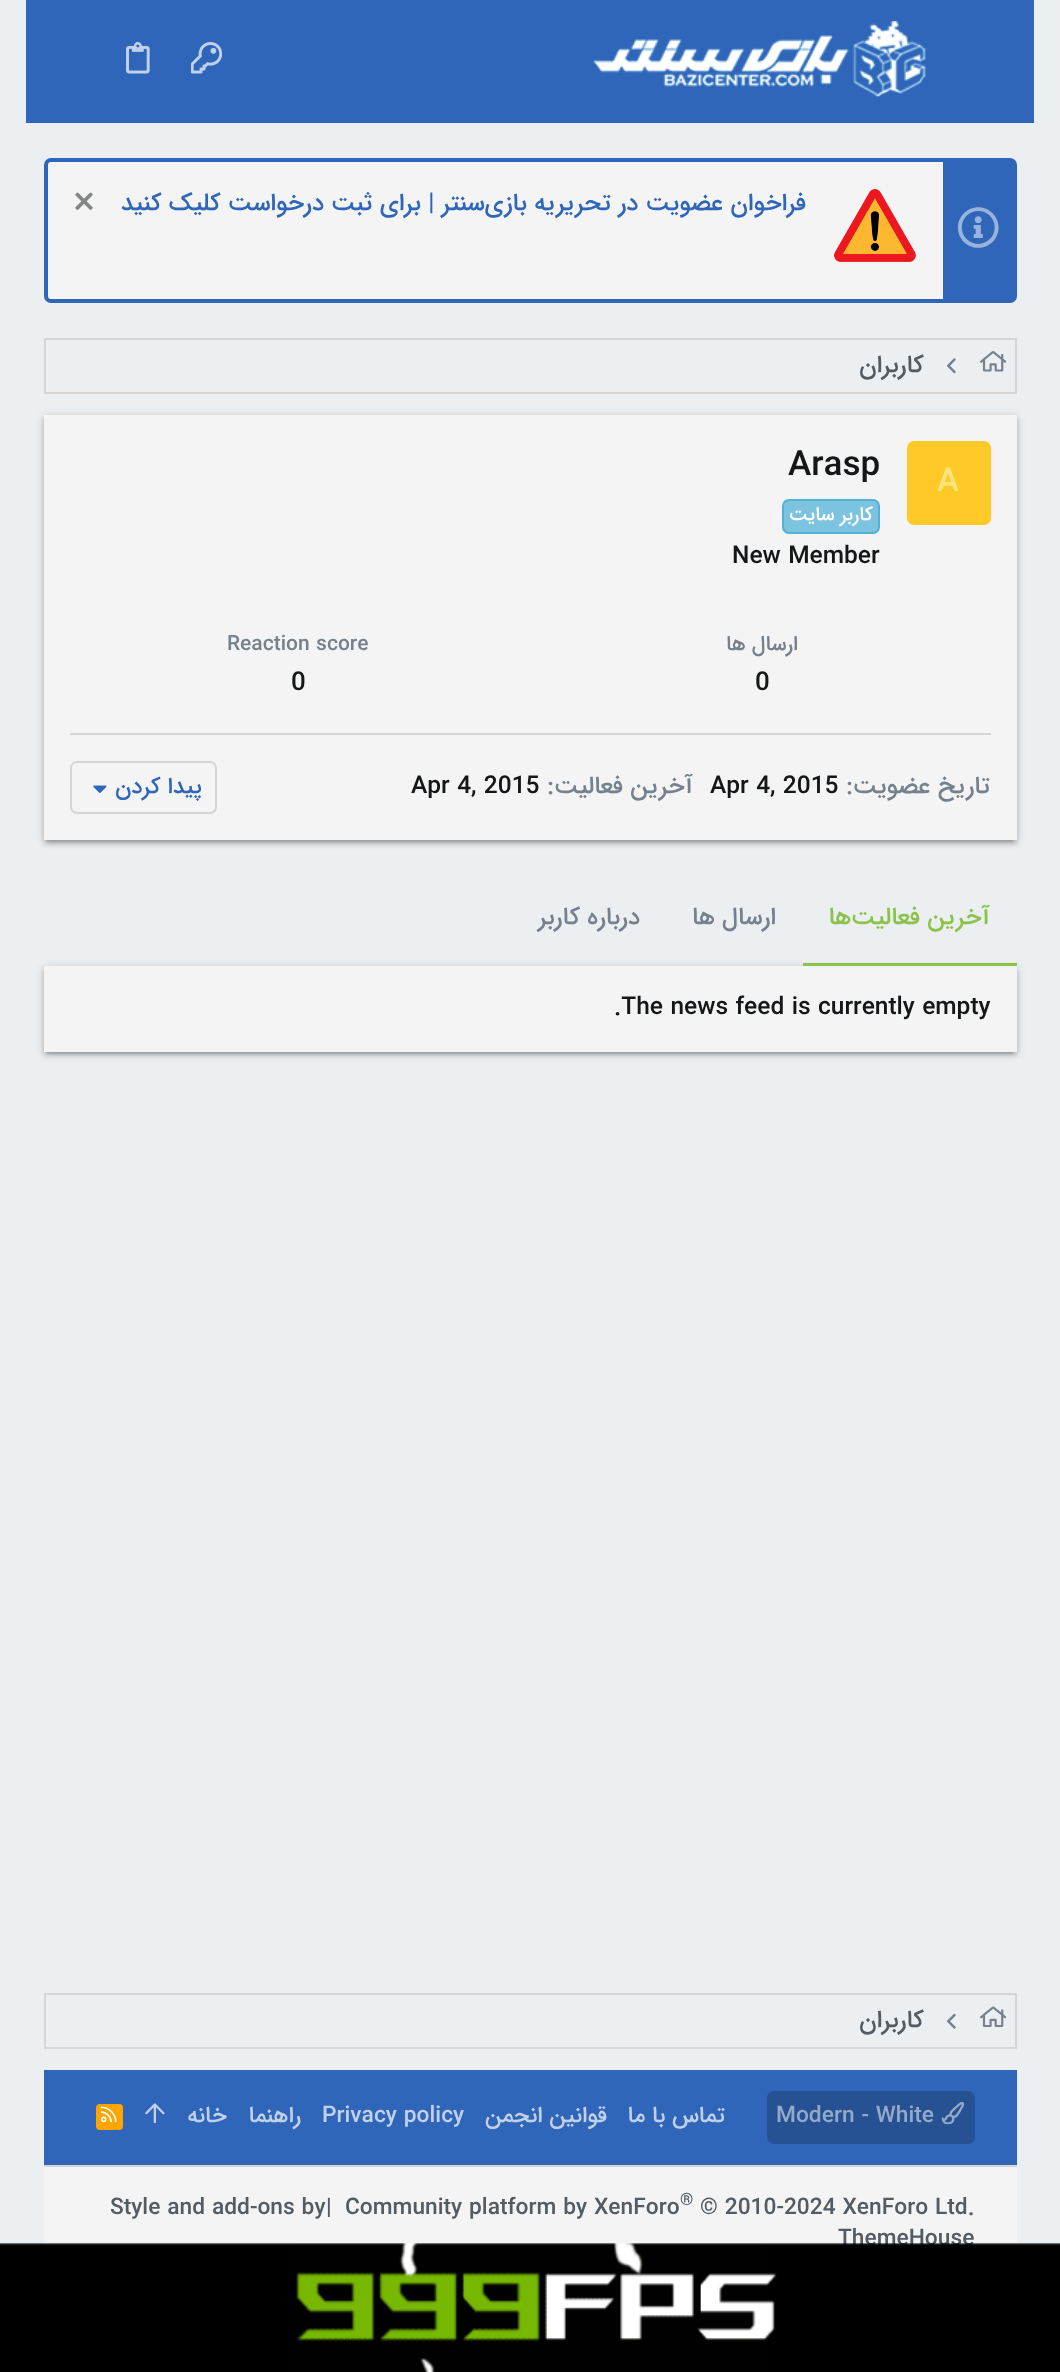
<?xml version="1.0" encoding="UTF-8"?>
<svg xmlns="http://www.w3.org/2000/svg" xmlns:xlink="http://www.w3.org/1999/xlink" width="1060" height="2372">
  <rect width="100%" height="100%" fill="#eceff1" />
  <rect x="26" width="1008" height="123" fill="#2f66b9" />
  <image x="126" y="42" width="24" height="32" xlink:href="image1.png" />
  <image x="191" y="42" width="31" height="32" xlink:href="image2.png" />
  <image x="593" y="21" width="333" height="76" xlink:href="image3.png" />
  <rect x="46" y="160" width="969" height="141" rx="5" fill="#f4f4f4" stroke="#2f66b9" stroke-width="4" />
  <image x="75" y="192" width="18" height="18" xlink:href="image4.png" />
  <image x="834" y="189" width="82" height="73" xlink:href="image5.png" />
  <rect x="943" y="162" width="70" height="137" fill="#2f66b9" />
  <image x="957" y="207" width="42" height="41" xlink:href="image6.png" />
  <rect x="45" y="339" width="971" height="54" fill="none" stroke="#d5d5d5" stroke-width="2" />
  <image x="947" y="358" width="9" height="16" xlink:href="image7.png" />
  <image x="980" y="351" width="26" height="21" xlink:href="image8.png" />
  <rect x="44" y="417" width="973" height="425" fill="#000000" fill-opacity="0.2" filter="blur(4.5px)" />
  <rect x="47" y="424" width="966" height="418" fill="#000000" fill-opacity="0.12" filter="blur(1px)" />
  <rect x="44" y="418" width="973" height="426" fill="#000000" fill-opacity="0.14" filter="blur(2px)" />
  <rect x="44" y="415" width="973" height="425" fill="#f4f4f4" />
  <rect x="783" y="500" width="96" height="33" rx="6" fill="#7cc3e0" stroke="#53b0d6" stroke-width="2" />
  <rect x="907" y="441" width="84" height="84" rx="7" fill="#ffca28" />
  <rect x="70" y="733" width="921" height="2" fill="#d5d5d5" />
  <rect x="71" y="762" width="145" height="51" rx="6" fill="none" stroke="#d5d5d5" stroke-width="2" />
  <image x="93" y="785" width="14" height="8" xlink:href="image9.png" />
  <rect x="44" y="968" width="973" height="86" fill="#000000" fill-opacity="0.2" filter="blur(4.5px)" />
  <rect x="44" y="970" width="973" height="85" fill="#000000" fill-opacity="0.14" filter="blur(2px)" />
  <rect x="803" y="963" width="214" height="3" fill="#8bc34a" />
  <rect x="47" y="975" width="966" height="79" fill="#000000" fill-opacity="0.12" filter="blur(1px)" />
  <rect x="44" y="966" width="973" height="86" fill="#f4f4f4" />
  <rect x="45" y="1994" width="971" height="54" fill="none" stroke="#d5d5d5" stroke-width="2" />
  <image x="947" y="2013" width="9" height="16" xlink:href="image10.png" />
  <image x="980" y="2006" width="26" height="21" xlink:href="image11.png" />
  <rect x="44" y="2070" width="973" height="95" fill="#2f66b9" />
  <rect x="96" y="2104" width="27" height="26" rx="4" fill="#ffa500" />
  <image x="100" y="2106" width="17" height="17" xlink:href="image12.png" />
  <image x="145" y="2103" width="20" height="20" xlink:href="image13.png" />
  <rect x="767" y="2091" width="208" height="53" rx="7" fill="#265294" />
  <image x="941" y="2102" width="23" height="23" xlink:href="image14.png" />
  <rect x="44" y="2167" width="973" height="78" fill="#f4f4f4" />
  <rect x="44" y="2165" width="973" height="2" fill="#d5d5d5" />
  <text x="806" y="210" style="font-family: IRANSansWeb; font-size: 24.5px; font-weight: 500; direction: rtl; fill: #2f66b9">فراخوان عضویت در تحریریه بازی‌سنتر | برای ثبت درخواست کلیک کنید</text>
  <text x="924" y="372" style="font-family: IRANSansWeb; font-size: 24.5px; font-weight: 500; direction: rtl; fill: #535b63">کاربران</text>
  <text x="788" y="475" style="font-family: IRANSansWeb; font-size: 35px; font-weight: 500; fill: #141618">Arasp</text>
  <text x="873" y="520" style="font-family: IRANSansWeb; font-size: 19.25px; font-weight: 500; direction: rtl; fill: #ffffff">کاربر سایت</text>
  <text x="732" y="563" style="font-family: IRANSansWeb; font-size: 24.5px; font-weight: 500; fill: #141618">New Member</text>
  <text x="937" y="491" style="font-family: IRANSansWeb; font-size: 33px; font-weight: 500; fill: #ffe57f">A</text>
  <text x="227" y="650" style="font-family: IRANSansWeb; font-size: 21px; font-weight: 500; fill: #76818d">Reaction score</text>
  <text x="291" y="690" style="font-family: IRANSansWeb; font-size: 26px; font-weight: 500; fill: #141618">0</text>
  <text x="798" y="650" style="font-family: IRANSansWeb; font-size: 21px; font-weight: 500; direction: rtl; fill: #76818d">ارسال ها</text>
  <text x="755" y="690" style="font-family: IRANSansWeb; font-size: 26px; font-weight: 500; fill: #141618">0</text>
  <text x="202" y="793" style="font-family: IRANSansWeb; font-size: 22.75px; font-weight: 500; direction: rtl; fill: #2f66b9">پیدا کردن</text>
  <text x="411" y="793" style="font-family: IRANSansWeb; font-size: 24.5px; font-weight: 500; fill: #141618">Apr 4, 2015</text>
  <text x="547" y="793" style="font-family: IRANSansWeb; font-size: 24.5px; font-weight: 500; fill: #76818d">:</text>
  <text x="693" y="793" style="font-family: IRANSansWeb; font-size: 24.5px; font-weight: 500; direction: rtl; fill: #76818d">آخرین فعالیت</text>
  <text x="710" y="793" style="font-family: IRANSansWeb; font-size: 24.5px; font-weight: 500; fill: #141618">Apr 4, 2015</text>
  <text x="846" y="793" style="font-family: IRANSansWeb; font-size: 24.5px; font-weight: 500; fill: #76818d">:</text>
  <text x="990" y="793" style="font-family: IRANSansWeb; font-size: 24.5px; font-weight: 500; direction: rtl; fill: #76818d">تاریخ عضویت</text>
  <text x="640" y="924" style="font-family: IRANSansWeb; font-size: 24.5px; font-weight: 500; direction: rtl; fill: #76818d">درباره کاربر</text>
  <text x="776" y="924" style="font-family: IRANSansWeb; font-size: 24.5px; font-weight: 500; direction: rtl; fill: #76818d">ارسال ها</text>
  <text x="990" y="924" style="font-family: IRANSansWeb; font-size: 24.5px; font-weight: 500; direction: rtl; fill: #8bc34a">آخرین فعالیت‌ها</text>
  <text x="614" y="1014" style="font-family: IRANSansWeb; font-size: 24.5px; font-weight: 500; fill: #141618">.The news feed is currently empty</text>
  <text x="924" y="2027" style="font-family: IRANSansWeb; font-size: 24.5px; font-weight: 500; direction: rtl; fill: #535b63">کاربران</text>
  <text x="227" y="2122" style="font-family: IRANSansWeb; font-size: 22.75px; font-weight: 500; direction: rtl; fill: #c1d1ea">خانه</text>
  <text x="301" y="2122" style="font-family: IRANSansWeb; font-size: 22.75px; font-weight: 500; direction: rtl; fill: #c1d1ea">راهنما</text>
  <text x="322" y="2122" style="font-family: IRANSansWeb; font-size: 22.75px; font-weight: 500; fill: #c1d1ea">Privacy policy</text>
  <text x="607" y="2122" style="font-family: IRANSansWeb; font-size: 22.75px; font-weight: 500; direction: rtl; fill: #c1d1ea">قوانین انجمن</text>
  <text x="725" y="2122" style="font-family: IRANSansWeb; font-size: 22.75px; font-weight: 500; direction: rtl; fill: #c1d1ea">تماس با ما</text>
  <text x="776" y="2122" style="font-family: IRANSansWeb; font-size: 22.75px; font-weight: 500; fill: #93a9ca">Modern - White</text>
  <text x="110" y="2214" style="font-family: IRANSansWeb; font-size: 22.75px; font-weight: 500; fill: #535b63">Style and add-ons by</text>
  <text x="326" y="2214" style="font-family: IRANSansWeb; font-size: 22.75px; font-weight: 500; fill: #535b63">|</text>
  <text x="345" y="2214" style="font-family: IRANSansWeb; font-size: 22.75px; font-weight: 500; fill: #535b63">Community platform by XenForo</text>
  <text x="680" y="2205" style="font-family: IRANSansWeb; font-size: 17px; font-weight: 500; fill: #535b63">®</text>
  <text x="700" y="2214" style="font-family: IRANSansWeb; font-size: 22.75px; font-weight: 500; fill: #535b63">© 2010-2024 XenForo Ltd.</text>
  <text x="838" y="2245" style="font-family: IRANSansWeb; font-size: 22.75px; font-weight: 500; fill: #535b63">ThemeHouse</text>
  <image x="0" y="2243" width="1060" height="129" xlink:href="image15.png" />
</svg>
